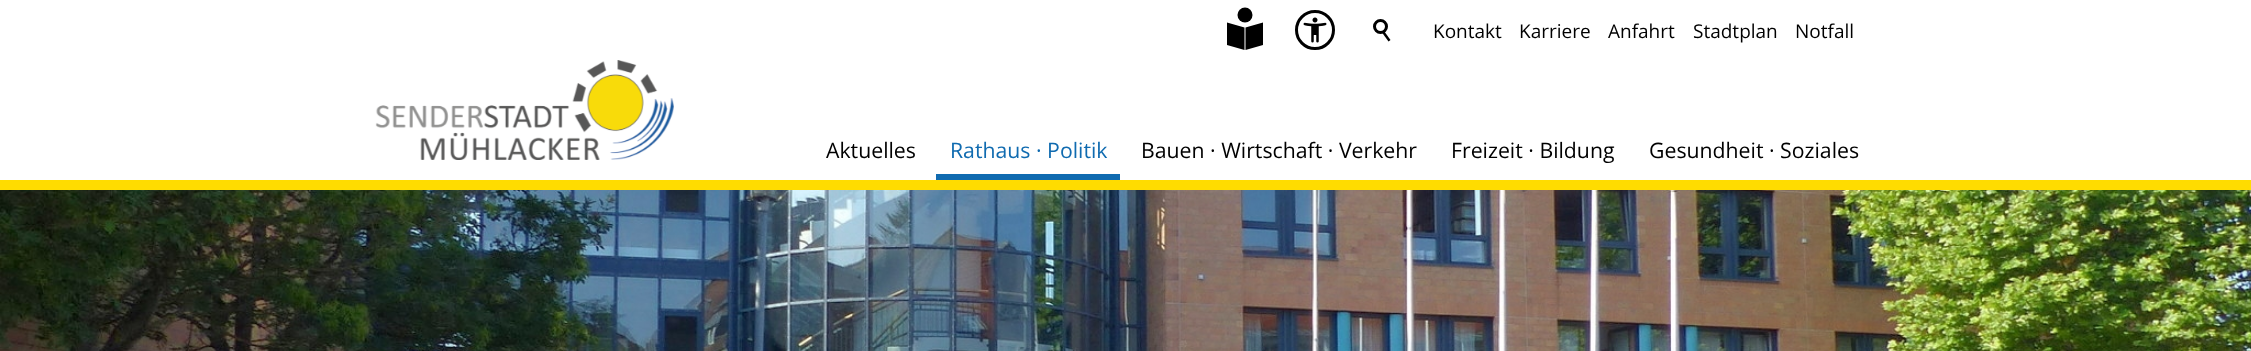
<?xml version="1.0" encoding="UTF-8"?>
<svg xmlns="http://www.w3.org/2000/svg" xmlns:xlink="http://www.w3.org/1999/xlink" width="2251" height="351">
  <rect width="100%" height="100%" fill="#ffffff" />
  <rect y="180" width="2251" height="10" fill="#ffdc00" />
  <path d="M 1227 22.5 l 17.5 5 v 22.5 l -17.5 -5 z m 36 0 l -17.5 5 v 22.5 l 17.5 -5 z" fill="#000000" />
  <circle cx="1245" cy="15" r="7.5" fill="#000000" />
  <image x="1303" y="17" width="24" height="26" xlink:href="image1.png" />
  <circle cx="1315" cy="30" r="18.5" fill="none" stroke="#000000" stroke-width="3" />
  <circle cx="1380.5" cy="26.5" r="6" fill="none" stroke="#000000" stroke-width="3" />
  <path d="M 1384 31 l 6.5 9 l -2 1.5 l -6.5 -9 z" fill="#000000" />
  <image x="375" y="60" width="299" height="100" xlink:href="image2.png" />
  <rect x="936" y="174" width="184" height="6" fill="#106bb0" />
  <image x="0" y="190" width="2251" height="161" xlink:href="image3.png" />
  <text x="1433" y="38" style="font-family: Open Sans; font-size: 19px; fill: #000000">Kontakt</text>
  <text x="1519" y="38" style="font-family: Open Sans; font-size: 19px; fill: #000000">Karriere</text>
  <text x="1608" y="38" style="font-family: Open Sans; font-size: 19px; fill: #000000">Anfahrt</text>
  <text x="1693" y="38" style="font-family: Open Sans; font-size: 19px; fill: #000000">Stadtplan</text>
  <text x="1795" y="38" style="font-family: Open Sans; font-size: 19px; fill: #000000">Notfall</text>
  <text x="826" y="158" style="font-family: Open Sans; font-size: 21.25px; fill: #000000">Aktuelles</text>
  <text x="950" y="158" style="font-family: Open Sans; font-size: 21.25px; fill: #106bb0">Rathaus · Politik</text>
  <text x="1141" y="158" style="font-family: Open Sans; font-size: 21.25px; fill: #000000">Bauen · Wirtschaft · Verkehr</text>
  <text x="1451" y="158" style="font-family: Open Sans; font-size: 21.25px; fill: #000000">Freizeit · Bildung</text>
  <text x="1649" y="158" style="font-family: Open Sans; font-size: 21.25px; fill: #000000">Gesundheit · Soziales</text>
</svg>
